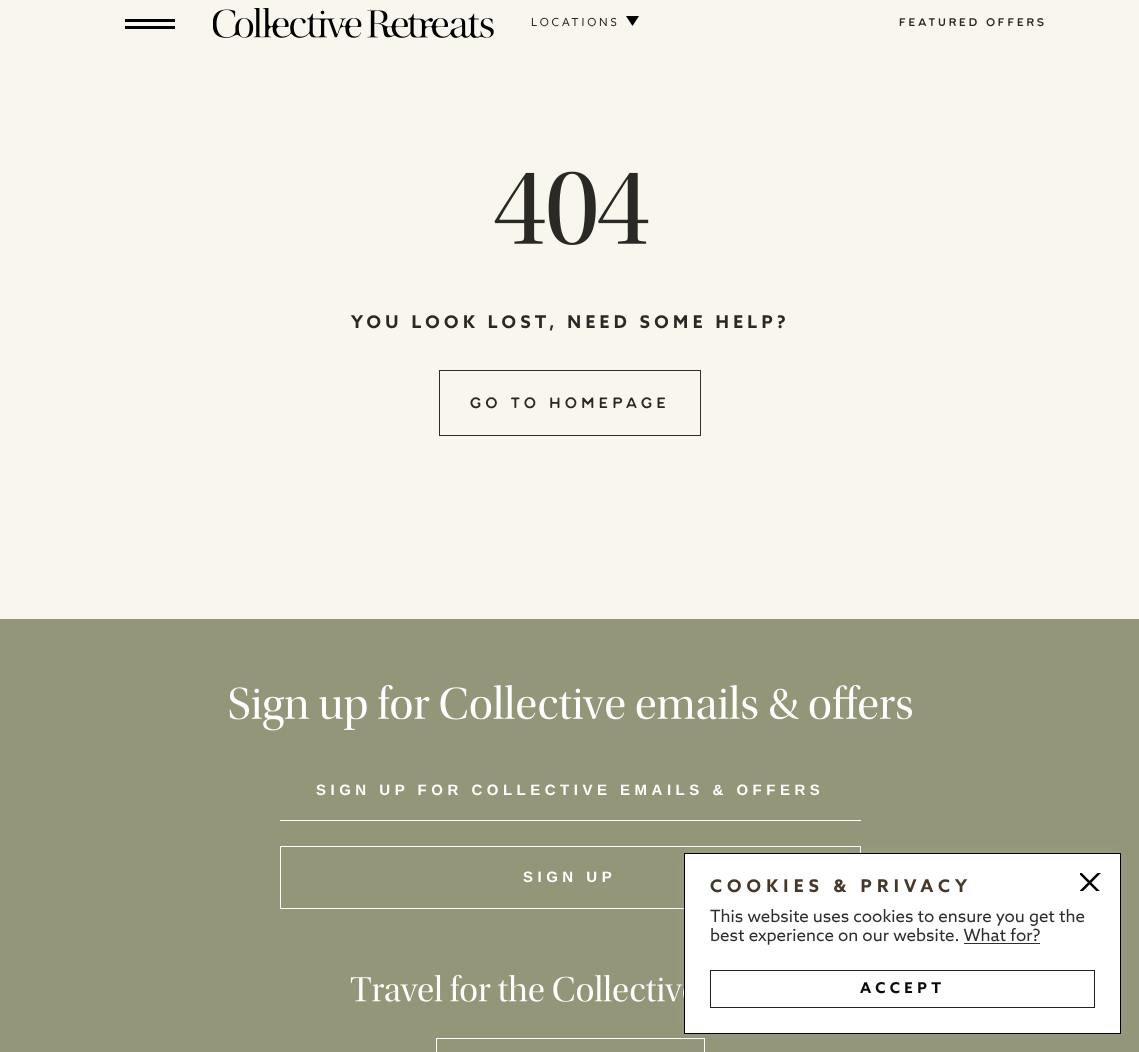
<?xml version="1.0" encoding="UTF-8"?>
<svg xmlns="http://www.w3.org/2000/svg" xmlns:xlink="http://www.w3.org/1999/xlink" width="1139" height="1052">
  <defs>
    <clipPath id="clip1"><rect x="1080" y="873" width="21" height="18" /></clipPath>
  </defs>
  <rect width="100%" height="100%" fill="#f9f7ed" />
  <rect x="125" y="19" width="50" height="3" fill="#000000" />
  <rect x="125" y="26" width="50" height="3" fill="#000000" />
  <image x="213" y="8" width="281" height="30" xlink:href="image1.png" />
  <path d="M 626 16 h 13 l -6.5 10 z" fill="#000000" />
  <image x="494" y="171" width="155" height="74" xlink:href="image2.png" />
  <rect x="439.5" y="370.5" width="261" height="65" fill="none" stroke="#2f2f2f" />
  <rect y="619" width="1139" height="433" fill="#939678" />
  <image x="229" y="685" width="684" height="46" xlink:href="image3.png" />
  <rect x="280" y="820" width="581" height="1" fill="#ffffff" />
  <rect x="280.5" y="846.5" width="580" height="62" fill="none" stroke="#ffffff" />
  <image x="350" y="974" width="334" height="28" xlink:href="image4.png" />
  <rect x="436.5" y="1038.5" width="268" height="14" fill="none" stroke="#ffffff" />
  <rect x="684" y="851" width="437" height="182" fill="#acabab" fill-opacity="0.3" filter="blur(6px)" />
  <rect x="684.5" y="853.5" width="436" height="180" fill="#ffffff" stroke="#000000" />
  <g clip-path="url(#clip1)">
    <path d="M 1108 901 l -35 -35 m 0 33.5 l 35 -35.5" fill="none" stroke="#000000" stroke-width="2.5" />
  </g>
  <rect x="964" y="943" width="76" height="1" fill="#2f2f2f" />
  <rect x="710.5" y="970.5" width="384" height="37" fill="none" stroke="#212121" />
  <text x="531" y="26" style="font-family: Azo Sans; font-size: 11.1px; letter-spacing: 2.9px; fill: #2b2925">LOCATIONS</text>
  <text x="899" y="26" style="font-family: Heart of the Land; font-size: 11.1px; letter-spacing: 2.9px; fill: #2b2925">FEATURED OFFERS</text>
  <text x="351" y="328" style="font-family: Azo Sans; font-size: 17.5px; font-weight: bold; letter-spacing: 4.4px; fill: #2b2925">YOU LOOK LOST, NEED SOME HELP?</text>
  <text x="470" y="408" style="font-family: Heart of the Land; font-size: 15px; letter-spacing: 4.5px; fill: #2b2925">GO TO HOMEPAGE</text>
  <text x="316" y="795" style="font-family: Liberation Sans; font-size: 15px; font-weight: bold; letter-spacing: 4.5px; fill: #ffffff">SIGN UP FOR COLLECTIVE EMAILS &amp; OFFERS</text>
  <text x="523" y="882" style="font-family: Liberation Sans; font-size: 15px; font-weight: bold; letter-spacing: 4.5px; fill: #ffffff">SIGN UP</text>
  <text x="710" y="892" style="font-family: Azo Sans; font-size: 17.5px; font-weight: bold; letter-spacing: 5.25px; fill: #44382b">COOKIES &amp; PRIVACY</text>
  <text x="710" y="922" style="font-family: Azo Sans; font-size: 16.9px; fill: #2f2f2f">This website uses cookies to ensure you get the</text>
  <text x="710" y="941" style="font-family: Azo Sans; font-size: 16.9px; fill: #2f2f2f">best experience on our website. What for?</text>
  <text x="860" y="993" style="font-family: Azo Sans; font-size: 15px; font-weight: bold; letter-spacing: 4.5px; fill: #0a0a0a">ACCEPT</text>
</svg>
